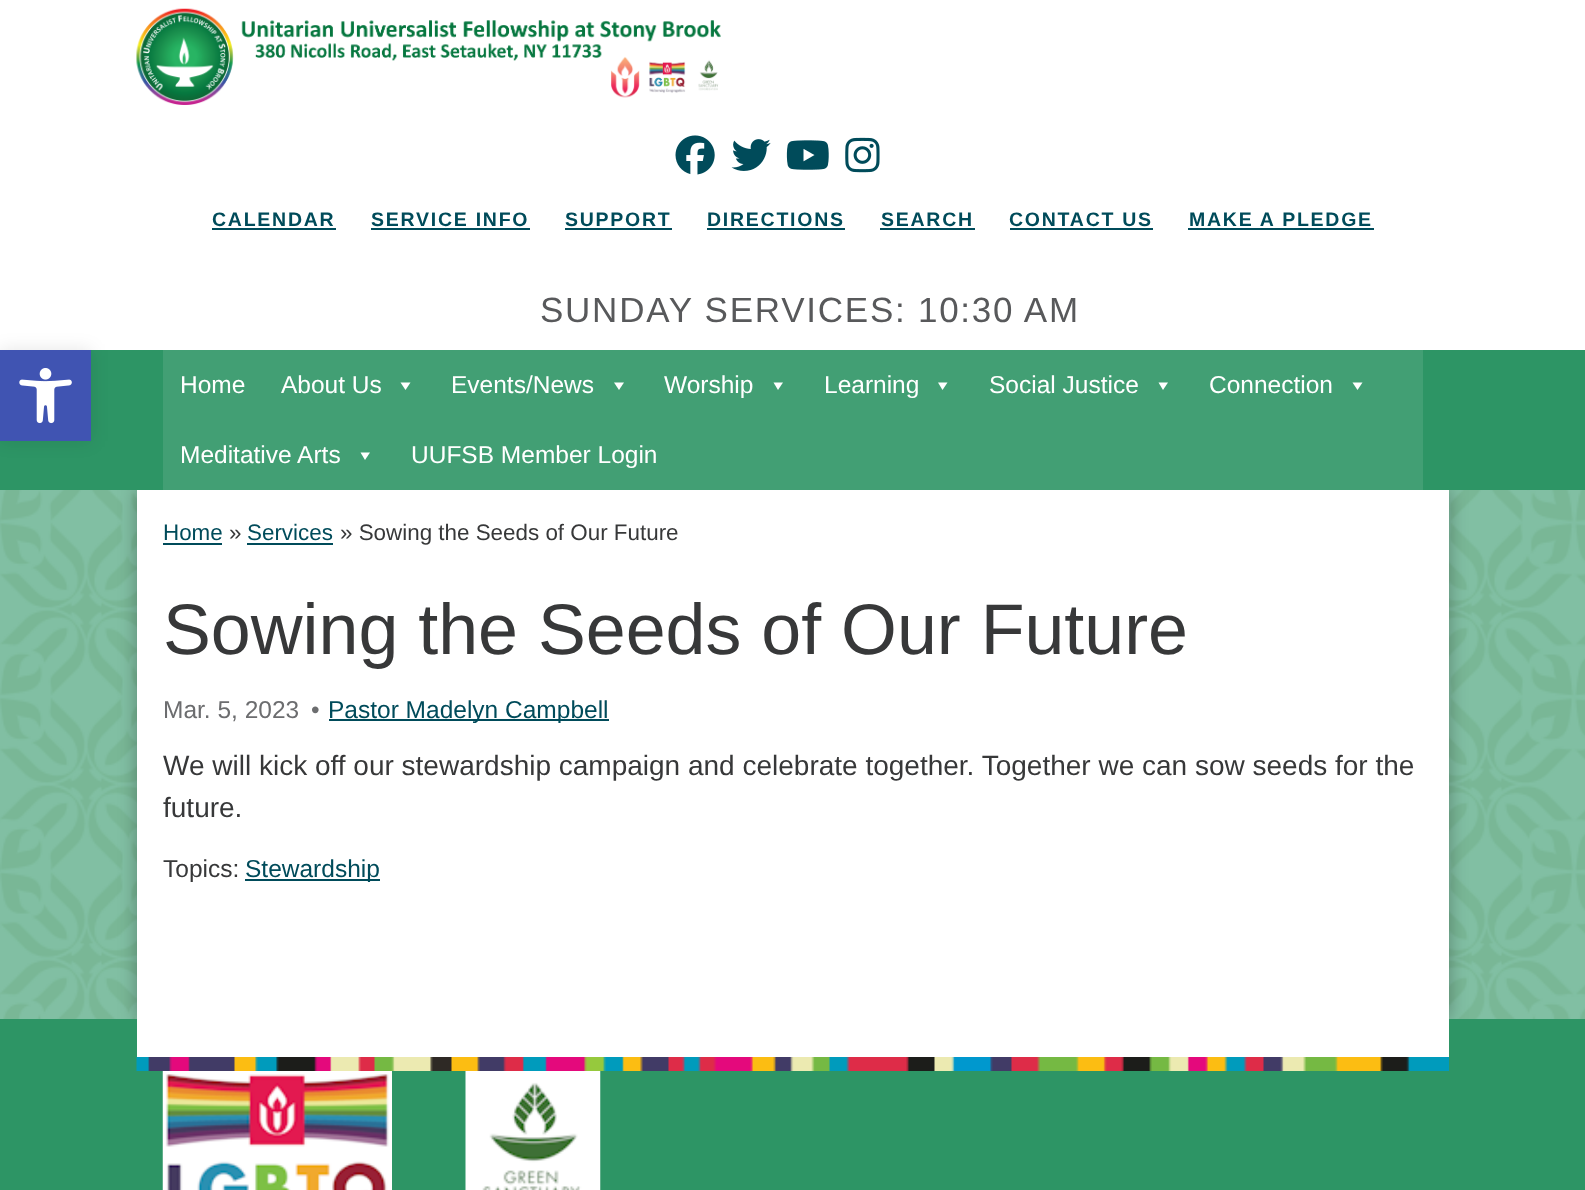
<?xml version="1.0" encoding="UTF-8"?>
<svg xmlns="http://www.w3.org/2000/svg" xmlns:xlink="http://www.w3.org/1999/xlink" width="1585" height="1190">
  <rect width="100%" height="100%" fill="#ffffff" />
  <image x="0" y="490" width="1585" height="529" xlink:href="image1.png" />
  <image x="136" y="8" width="585" height="97" xlink:href="image2.png" />
  <image x="675" y="135" width="40" height="40" xlink:href="image3.png" />
  <image x="731" y="139" width="40" height="32" xlink:href="image4.png" />
  <image x="786" y="140" width="43" height="30" xlink:href="image5.png" />
  <image x="845" y="137" width="35" height="36" xlink:href="image6.png" />
  <rect x="212" y="228" width="124" height="2" fill="#004b5a" />
  <rect x="371" y="228" width="159" height="2" fill="#004b5a" />
  <rect x="565" y="228" width="107" height="2" fill="#004b5a" />
  <rect x="707" y="228" width="138" height="2" fill="#004b5a" />
  <rect x="880" y="228" width="95" height="2" fill="#004b5a" />
  <rect x="1010" y="228" width="143" height="2" fill="#004b5a" />
  <rect x="1188" y="228" width="186" height="2" fill="#004b5a" />
  <rect x="137" y="490" width="1312" height="529" fill="#000000" fill-opacity="0.3" filter="blur(9px)" />
  <rect y="350" width="1585" height="140" fill="#2d9565" />
  <rect y="350" width="91" height="91" fill="#000000" fill-opacity="0.1" filter="blur(9px)" />
  <rect y="350" width="91" height="91" fill="#4054b2" />
  <image x="19" y="368" width="53" height="56" xlink:href="image7.png" />
  <rect x="163" y="350" width="1260" height="140" fill="#429f74" />
  <path d="M 410.5 382.5 l -5 7.5 l -5 -7.5 z" fill="#ffffff" />
  <path d="M 624 382.5 l -5 7.5 l -5 -7.5 z" fill="#ffffff" />
  <path d="M 783 382.5 l -5 7.5 l -4.5 -7.5 z" fill="#ffffff" />
  <path d="M 947.5 382.5 l -5 7.5 l -4.5 -7.5 z" fill="#ffffff" />
  <path d="M 1168 382.5 l -5 7.5 l -4.5 -7.5 z" fill="#ffffff" />
  <path d="M 1362.5 382.5 l -5 7.5 l -5 -7.5 z" fill="#ffffff" />
  <path d="M 370 452.5 l -5 7.5 l -4.5 -7.5 z" fill="#ffffff" />
  <rect x="137" y="490" width="1312" height="529" fill="#ffffff" />
  <rect x="163" y="543" width="59" height="2" fill="#004b5a" />
  <rect x="247" y="543" width="86" height="2" fill="#004b5a" />
  <rect x="329" y="719" width="280" height="2" fill="#004b5a" />
  <rect x="245" y="879" width="135" height="2" fill="#004b5a" />
  <rect y="1019" width="1585" height="171" fill="#2d9565" />
  <rect x="137" y="1019" width="1312" height="38" fill="#ffffff" />
  <image x="136" y="1057" width="1313" height="14" xlink:href="image8.png" />
  <image x="162" y="1071" width="230" height="119" xlink:href="image9.png" />
  <image x="465" y="1071" width="136" height="119" xlink:href="image10.png" />
  <text x="212" y="226" style="font-family: Liberation Sans; font-size: 19.5px; font-weight: bold; letter-spacing: 1.75px; fill: #004b5a">CALENDAR</text>
  <text x="371" y="226" style="font-family: Liberation Sans; font-size: 19.5px; font-weight: bold; letter-spacing: 1.75px; fill: #004b5a">SERVICE INFO</text>
  <text x="565" y="226" style="font-family: Liberation Sans; font-size: 19.5px; font-weight: bold; letter-spacing: 1.75px; fill: #004b5a">SUPPORT</text>
  <text x="707" y="226" style="font-family: Liberation Sans; font-size: 19.5px; font-weight: bold; letter-spacing: 1.75px; fill: #004b5a">DIRECTIONS</text>
  <text x="881" y="226" style="font-family: Liberation Sans; font-size: 19.5px; font-weight: bold; letter-spacing: 1.75px; fill: #004b5a">SEARCH</text>
  <text x="1009" y="226" style="font-family: Liberation Sans; font-size: 19.5px; font-weight: bold; letter-spacing: 1.75px; fill: #004b5a">CONTACT US</text>
  <text x="1189" y="226" style="font-family: Liberation Sans; font-size: 19.5px; font-weight: bold; letter-spacing: 1.75px; fill: #004b5a">MAKE A PLEDGE</text>
  <text x="540" y="322" style="font-family: Liberation Sans; font-size: 35px; letter-spacing: 1.75px; fill: #58595b">SUNDAY SERVICES: 10:30 AM</text>
  <text x="180" y="393" style="font-family: Liberation Sans; font-size: 24.5px; fill: #ffffff">Home</text>
  <text x="281" y="393" style="font-family: Liberation Sans; font-size: 24.5px; fill: #ffffff">About Us</text>
  <text x="451" y="393" style="font-family: Liberation Sans; font-size: 24.5px; fill: #ffffff">Events/News</text>
  <text x="664" y="393" style="font-family: Liberation Sans; font-size: 24.5px; fill: #ffffff">Worship</text>
  <text x="824" y="393" style="font-family: Liberation Sans; font-size: 24.5px; fill: #ffffff">Learning</text>
  <text x="989" y="393" style="font-family: Liberation Sans; font-size: 24.5px; fill: #ffffff">Social Justice</text>
  <text x="1209" y="393" style="font-family: Liberation Sans; font-size: 24.5px; fill: #ffffff">Connection</text>
  <text x="180" y="463" style="font-family: Liberation Sans; font-size: 24.5px; fill: #ffffff">Meditative Arts</text>
  <text x="411" y="463" style="font-family: Liberation Sans; font-size: 24.5px; fill: #ffffff">UUFSB Member Login</text>
  <text x="163" y="540" style="font-family: Liberation Sans; font-size: 22.4px; fill: #004b5a">Home</text>
  <text x="229" y="540" style="font-family: Liberation Sans; font-size: 22.4px; fill: #373839">»</text>
  <text x="247" y="540" style="font-family: Liberation Sans; font-size: 22.4px; fill: #004b5a">Services</text>
  <text x="340" y="540" style="font-family: Liberation Sans; font-size: 22.4px; fill: #373839">» Sowing the Seeds of Our Future</text>
  <text x="163" y="654" style="font-family: Liberation Sans; font-size: 71.75px; fill: #373839">Sowing the Seeds of Our Future</text>
  <text x="163" y="718" style="font-family: Liberation Sans; font-size: 24.5px; fill: #6c6d6f">Mar. 5, 2023</text>
  <text x="311" y="718" style="font-family: Liberation Sans; font-size: 24.5px; fill: #6c6d6f">•</text>
  <text x="328" y="718" style="font-family: Liberation Sans; font-size: 24.5px; fill: #004b5a">Pastor Madelyn Campbell</text>
  <text x="163" y="775" style="font-family: Liberation Sans; font-size: 28px; fill: #373839">We will kick off our stewardship campaign and celebrate together. Together we can sow seeds for the</text>
  <text x="163" y="817" style="font-family: Liberation Sans; font-size: 28px; fill: #373839">future.</text>
  <text x="163" y="877" style="font-family: Liberation Sans; font-size: 24.5px; fill: #373839">Topics:</text>
  <text x="245" y="877" style="font-family: Liberation Sans; font-size: 24.5px; fill: #004b5a">Stewardship</text>
</svg>
